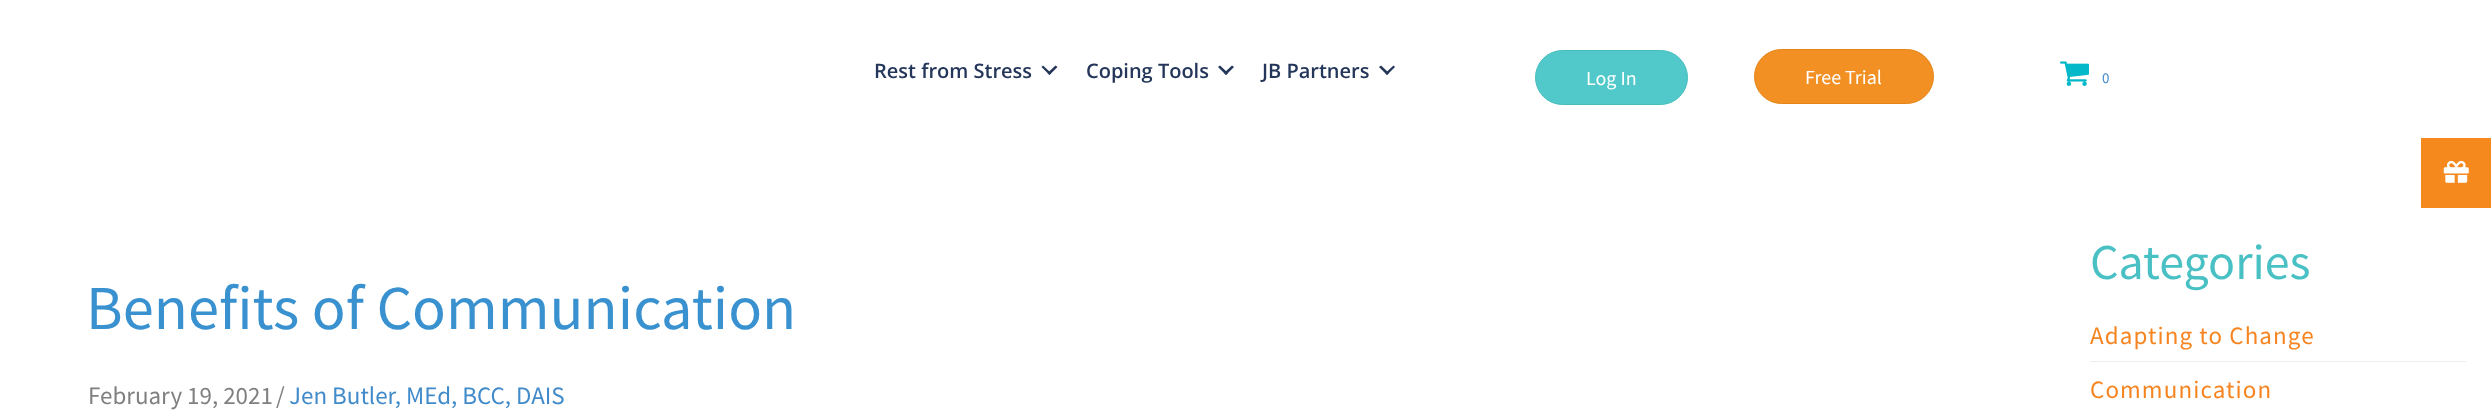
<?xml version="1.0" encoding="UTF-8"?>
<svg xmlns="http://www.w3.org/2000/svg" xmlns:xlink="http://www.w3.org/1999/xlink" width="2491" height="415">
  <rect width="100%" height="100%" fill="#ffffff" />
  <path d="M 1055.5 65.5 l 2 1.5 l -8 8 l -2 -2 z" fill="#243659" />
  <path d="M 1043 65.5 l 8 7.5 l -1.5 2 l -8 -8 z" fill="#243659" />
  <path d="M 1232 65.5 l 2 1.5 l -8 8 l -2 -2 z" fill="#243659" />
  <path d="M 1220 65.5 l 8 7.5 l -2 2 l -8 -8 z" fill="#243659" />
  <path d="M 1393.5 65.5 l 1.5 1.5 l -8 8 l -1.5 -2 z" fill="#243659" />
  <path d="M 1381 65.5 l 8 7.5 l -2 2 l -8 -8 z" fill="#243659" />
  <rect x="1535.5" y="50.5" width="152" height="54" rx="27" fill="#51c9ca" stroke="#45bdbe" />
  <rect x="1754.5" y="49.5" width="179" height="54" rx="27" fill="#f29023" stroke="#e68417" />
  <image x="2060" y="61" width="29" height="25" xlink:href="image1.png" />
  <rect x="2090" y="361" width="376" height="1" fill="#eeeeee" />
  <rect x="2421" y="138" width="70" height="70" fill="#f5891e" />
  <image x="2443" y="160" width="26" height="23" xlink:href="image2.png" />
  <text x="874" y="78" style="font-family: Open Sans; font-size: 20px; font-weight: 600; fill: #243659">Rest from Stress</text>
  <text x="1086" y="78" style="font-family: Open Sans; font-size: 20px; font-weight: 600; fill: #243659">Coping Tools</text>
  <text x="1262" y="78" style="font-family: Open Sans; font-size: 20px; font-weight: 600; fill: #243659">JB Partners</text>
  <text x="1586" y="85" style="font-family: Source Sans Pro; font-size: 20px; fill: #ffffff">Log In</text>
  <text x="1805" y="84" style="font-family: Source Sans Pro; font-size: 20px; fill: #ffffff">Free Trial</text>
  <text x="2102" y="83" style="font-family: Source Sans Pro; font-size: 15px; fill: #428bca">0</text>
  <text x="86" y="329" style="font-family: Source Sans Pro; font-size: 62.5px; fill: #3992cf">Benefits of Communication</text>
  <text x="88" y="404" style="font-family: Source Sans Pro; font-size: 25px; fill: #808080">February 19, 2021</text>
  <text x="276" y="404" style="font-family: Source Sans Pro; font-size: 25px; fill: #808080">/</text>
  <text x="289" y="404" style="font-family: Source Sans Pro; font-size: 25px; fill: #428bca">Jen Butler, MEd, BCC, DAIS</text>
  <text x="2090" y="279" style="font-family: Source Sans Pro; font-size: 50px; fill: #49c1c4">Categories</text>
  <text x="2090" y="344" style="font-family: Source Sans Pro; font-size: 25px; letter-spacing: 1.1px; fill: #f68521">Adapting to Change</text>
  <text x="2090" y="398" style="font-family: Source Sans Pro; font-size: 25px; letter-spacing: 1.1px; fill: #f68521">Communication</text>
</svg>
